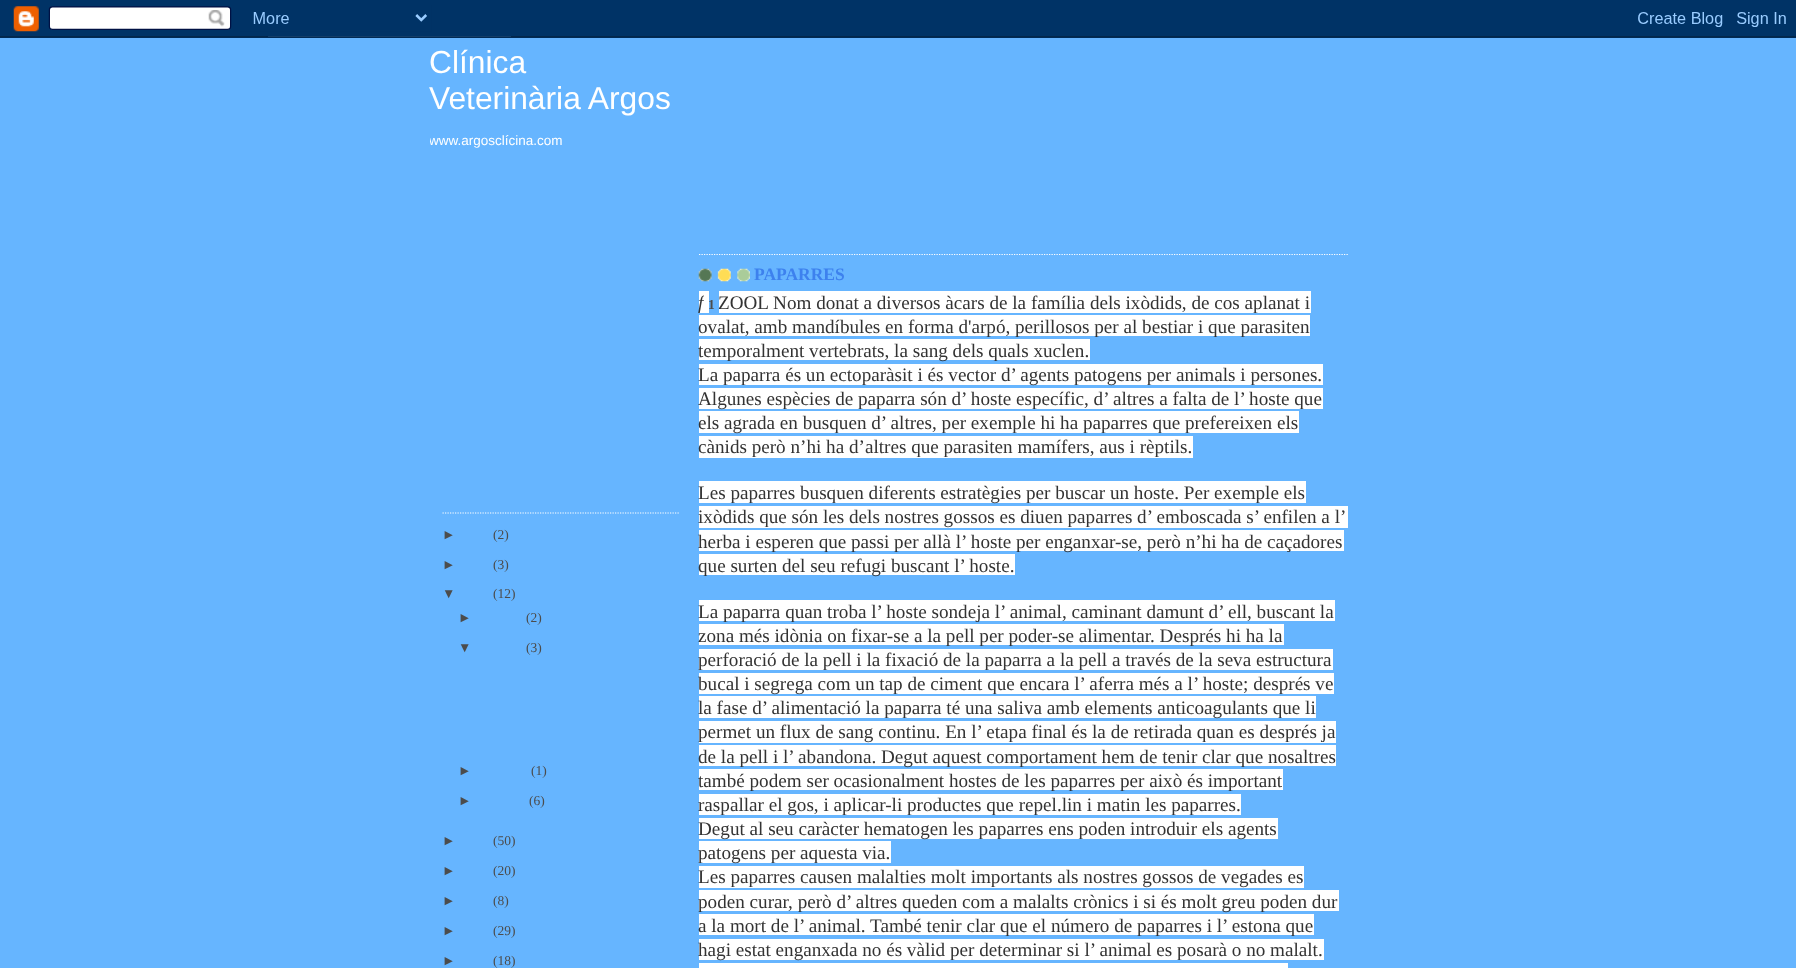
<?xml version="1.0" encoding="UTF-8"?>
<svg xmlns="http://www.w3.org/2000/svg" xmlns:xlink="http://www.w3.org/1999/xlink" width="1796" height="968">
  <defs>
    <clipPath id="clip1"><rect x="430" y="38" width="250" height="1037" /></clipPath>
  </defs>
  <rect width="100%" height="100%" fill="#66b5ff" />
  <image x="0" y="0" width="1796" height="38" xlink:href="image1.png" />
  <g clip-path="url(#clip1)">
    <path d="M 442.5 513 h 250" fill="none" stroke="#ffffff" stroke-width="1.2" stroke-dasharray="1.25 1.25" />
  </g>
  <path d="M 699 254.5 h 650" fill="none" stroke="#ffffff" stroke-width="1.2" stroke-dasharray="1.25 1.25" />
  <image x="698" y="268" width="52" height="14" xlink:href="image2.png" />
  <rect x="699" y="291" width="5" height="22" fill="#ffffff" />
  <rect x="719" y="291" width="592" height="22" fill="#ffffff" />
  <rect x="699" y="315" width="611" height="21" fill="#ffffff" />
  <rect x="699" y="339" width="391" height="21" fill="#ffffff" />
  <rect x="699" y="364" width="624" height="21" fill="#ffffff" />
  <rect x="699" y="388" width="624" height="21" fill="#ffffff" />
  <rect x="699" y="411" width="600" height="22" fill="#ffffff" />
  <rect x="699" y="436" width="494" height="22" fill="#ffffff" />
  <rect x="699" y="481" width="607" height="22" fill="#ffffff" />
  <rect x="699" y="506" width="649" height="22" fill="#ffffff" />
  <rect x="699" y="530" width="645" height="21" fill="#ffffff" />
  <rect x="699" y="554" width="316" height="21" fill="#ffffff" />
  <rect x="699" y="600" width="636" height="21" fill="#ffffff" />
  <rect x="699" y="624" width="585" height="21" fill="#ffffff" />
  <rect x="699" y="649" width="634" height="21" fill="#ffffff" />
  <rect x="699" y="673" width="635" height="21" fill="#ffffff" />
  <rect x="699" y="696" width="617" height="22" fill="#ffffff" />
  <rect x="699" y="721" width="637" height="22" fill="#ffffff" />
  <rect x="699" y="745" width="637" height="21" fill="#ffffff" />
  <rect x="699" y="769" width="584" height="21" fill="#ffffff" />
  <rect x="699" y="794" width="542" height="21" fill="#ffffff" />
  <rect x="699" y="818" width="579" height="21" fill="#ffffff" />
  <rect x="699" y="841" width="192" height="22" fill="#ffffff" />
  <rect x="699" y="866" width="605" height="22" fill="#ffffff" />
  <rect x="699" y="890" width="640" height="21" fill="#ffffff" />
  <rect x="699" y="914" width="615" height="21" fill="#ffffff" />
  <rect x="699" y="939" width="625" height="21" fill="#ffffff" />
  <rect x="699" y="963" width="589" height="5" fill="#ffffff" />
  <text x="429" y="73" style="font-family: Liberation Sans; font-size: 31.75px; fill: #ffffff">Clínica</text>
  <text x="429" y="109" style="font-family: Liberation Sans; font-size: 31.75px; fill: #ffffff">Veterinària Argos</text>
  <g clip-path="url(#clip1)">
    <text x="429" y="145" style="font-family: Liberation Sans; font-size: 13.5px; fill: #ffffff">www.argosclícina.com</text>
  </g>
  <text x="442" y="539" style="font-family: Liberation Sans; font-size: 13.5px; fill: #4c4c4c">►</text>
  <text x="493" y="539" style="font-family: Liberation Serif; font-size: 13.5px; fill: #4c4c4c">(2)</text>
  <text x="442" y="569" style="font-family: Liberation Sans; font-size: 13.5px; fill: #4c4c4c">►</text>
  <text x="493" y="569" style="font-family: Liberation Serif; font-size: 13.5px; fill: #4c4c4c">(3)</text>
  <text x="442" y="598" style="font-family: Liberation Sans; font-size: 13.5px; fill: #4c4c4c">▼</text>
  <text x="493" y="598" style="font-family: Liberation Serif; font-size: 13.5px; fill: #4c4c4c">(12)</text>
  <text x="458" y="622" style="font-family: Liberation Sans; font-size: 13.5px; fill: #4c4c4c">►</text>
  <text x="526" y="622" style="font-family: Liberation Serif; font-size: 13.5px; fill: #4c4c4c">(2)</text>
  <text x="458" y="652" style="font-family: Liberation Sans; font-size: 13.5px; fill: #4c4c4c">▼</text>
  <text x="526" y="652" style="font-family: Liberation Serif; font-size: 13.5px; fill: #4c4c4c">(3)</text>
  <text x="458" y="775" style="font-family: Liberation Sans; font-size: 13.5px; fill: #4c4c4c">►</text>
  <text x="531" y="775" style="font-family: Liberation Serif; font-size: 13.5px; fill: #4c4c4c">(1)</text>
  <text x="458" y="805" style="font-family: Liberation Sans; font-size: 13.5px; fill: #4c4c4c">►</text>
  <text x="529" y="805" style="font-family: Liberation Serif; font-size: 13.5px; fill: #4c4c4c">(6)</text>
  <text x="442" y="845" style="font-family: Liberation Sans; font-size: 13.5px; fill: #4c4c4c">►</text>
  <text x="493" y="845" style="font-family: Liberation Serif; font-size: 13.5px; fill: #4c4c4c">(50)</text>
  <text x="442" y="875" style="font-family: Liberation Sans; font-size: 13.5px; fill: #4c4c4c">►</text>
  <text x="493" y="875" style="font-family: Liberation Serif; font-size: 13.5px; fill: #4c4c4c">(20)</text>
  <text x="442" y="905" style="font-family: Liberation Sans; font-size: 13.5px; fill: #4c4c4c">►</text>
  <text x="493" y="905" style="font-family: Liberation Serif; font-size: 13.5px; fill: #4c4c4c">(8)</text>
  <text x="442" y="935" style="font-family: Liberation Sans; font-size: 13.5px; fill: #4c4c4c">►</text>
  <text x="493" y="935" style="font-family: Liberation Serif; font-size: 13.5px; fill: #4c4c4c">(29)</text>
  <text x="442" y="965" style="font-family: Liberation Sans; font-size: 13.5px; fill: #4c4c4c">►</text>
  <text x="493" y="965" style="font-family: Liberation Serif; font-size: 13.5px; fill: #4c4c4c">(18)</text>
  <text x="754" y="280" style="font-family: Liberation Serif; font-size: 17.5px; font-weight: bold; fill: #3d81ee">PAPARRES</text>
  <text x="698" y="309" style="font-family: Liberation Serif; font-size: 19.15px; font-style: italic; fill: #333333">f</text>
  <rect x="704" y="291" width="5" height="22" fill="#ffffff" />
  <text x="708" y="309" style="font-family: Liberation Serif; font-size: 13.5px; font-weight: bold; fill: #4c4c4c">1</text>
  <text x="718" y="309" style="font-family: Liberation Serif; font-size: 19.15px; fill: #333333">ZOOL Nom donat a diversos àcars de la família dels ixòdids, de cos aplanat i</text>
  <text x="698" y="333" style="font-family: Liberation Serif; font-size: 19.15px; fill: #333333">ovalat, amb mandíbules en forma d'arpó, perillosos per al bestiar i que parasiten</text>
  <text x="698" y="357" style="font-family: Liberation Serif; font-size: 19.15px; fill: #333333">temporalment vertebrats, la sang dels quals xuclen.</text>
  <text x="698" y="381" style="font-family: Liberation Serif; font-size: 19.15px; fill: #333333">La paparra és un ectoparàsit i és vector d’ agents patogens per animals i persones.</text>
  <text x="698" y="405" style="font-family: Liberation Serif; font-size: 19.15px; fill: #333333">Algunes espècies de paparra són d’ hoste específic, d’ altres a falta de l’ hoste que</text>
  <text x="698" y="429" style="font-family: Liberation Serif; font-size: 19.15px; fill: #333333">els agrada en busquen d’ altres, per exemple hi ha paparres que prefereixen els</text>
  <text x="698" y="453" style="font-family: Liberation Serif; font-size: 19.15px; fill: #333333">cànids però n’hi ha d’altres que parasiten mamífers, aus i rèptils.</text>
  <text x="698" y="499" style="font-family: Liberation Serif; font-size: 19.15px; fill: #333333">Les paparres busquen diferents estratègies per buscar un hoste. Per exemple els</text>
  <text x="698" y="523" style="font-family: Liberation Serif; font-size: 19.15px; fill: #333333">ixòdids que són les dels nostres gossos es diuen paparres d’ emboscada s’ enfilen a l’</text>
  <text x="698" y="548" style="font-family: Liberation Serif; font-size: 19.15px; fill: #333333">herba i esperen que passi per allà l’ hoste per enganxar-se, però n’hi ha de caçadores</text>
  <text x="698" y="572" style="font-family: Liberation Serif; font-size: 19.15px; fill: #333333">que surten del seu refugi buscant l’ hoste.</text>
  <text x="698" y="618" style="font-family: Liberation Serif; font-size: 19.15px; fill: #333333">La paparra quan troba l’ hoste sondeja l’ animal, caminant damunt d’ ell, buscant la</text>
  <text x="698" y="642" style="font-family: Liberation Serif; font-size: 19.15px; fill: #333333">zona més idònia on fixar-se a la pell per poder-se alimentar. Després hi ha la</text>
  <text x="698" y="666" style="font-family: Liberation Serif; font-size: 19.15px; fill: #333333">perforació de la pell i la fixació de la paparra a la pell a través de la seva estructura</text>
  <text x="698" y="690" style="font-family: Liberation Serif; font-size: 19.15px; fill: #333333">bucal i segrega com un tap de ciment que encara l’ aferra més a l’ hoste; després ve</text>
  <text x="698" y="714" style="font-family: Liberation Serif; font-size: 19.15px; fill: #333333">la fase d’ alimentació la paparra té una saliva amb elements anticoagulants que li</text>
  <text x="698" y="738" style="font-family: Liberation Serif; font-size: 19.15px; fill: #333333">permet un flux de sang continu. En l’ etapa final és la de retirada quan es després ja</text>
  <text x="698" y="763" style="font-family: Liberation Serif; font-size: 19.15px; fill: #333333">de la pell i l’ abandona. Degut aquest comportament hem de tenir clar que nosaltres</text>
  <text x="698" y="787" style="font-family: Liberation Serif; font-size: 19.15px; fill: #333333">també podem ser ocasionalment hostes de les paparres per això és important</text>
  <text x="698" y="811" style="font-family: Liberation Serif; font-size: 19.15px; fill: #333333">raspallar el gos, i aplicar-li productes que repel.lin i matin les paparres.</text>
  <text x="698" y="835" style="font-family: Liberation Serif; font-size: 19.15px; fill: #333333">Degut al seu caràcter hematogen les paparres ens poden introduir els agents</text>
  <text x="698" y="859" style="font-family: Liberation Serif; font-size: 19.15px; fill: #333333">patogens per aquesta via.</text>
  <text x="698" y="883" style="font-family: Liberation Serif; font-size: 19.15px; fill: #333333">Les paparres causen malalties molt importants als nostres gossos de vegades es</text>
  <text x="698" y="908" style="font-family: Liberation Serif; font-size: 19.15px; fill: #333333">poden curar, però d’ altres queden com a malalts crònics i si és molt greu poden dur</text>
  <text x="698" y="932" style="font-family: Liberation Serif; font-size: 19.15px; fill: #333333">a la mort de l’ animal. També tenir clar que el número de paparres i l’ estona que</text>
  <text x="698" y="956" style="font-family: Liberation Serif; font-size: 19.15px; fill: #333333">hagi estat enganxada no és vàlid per determinar si l’ animal es posarà o no malalt.</text>
</svg>
